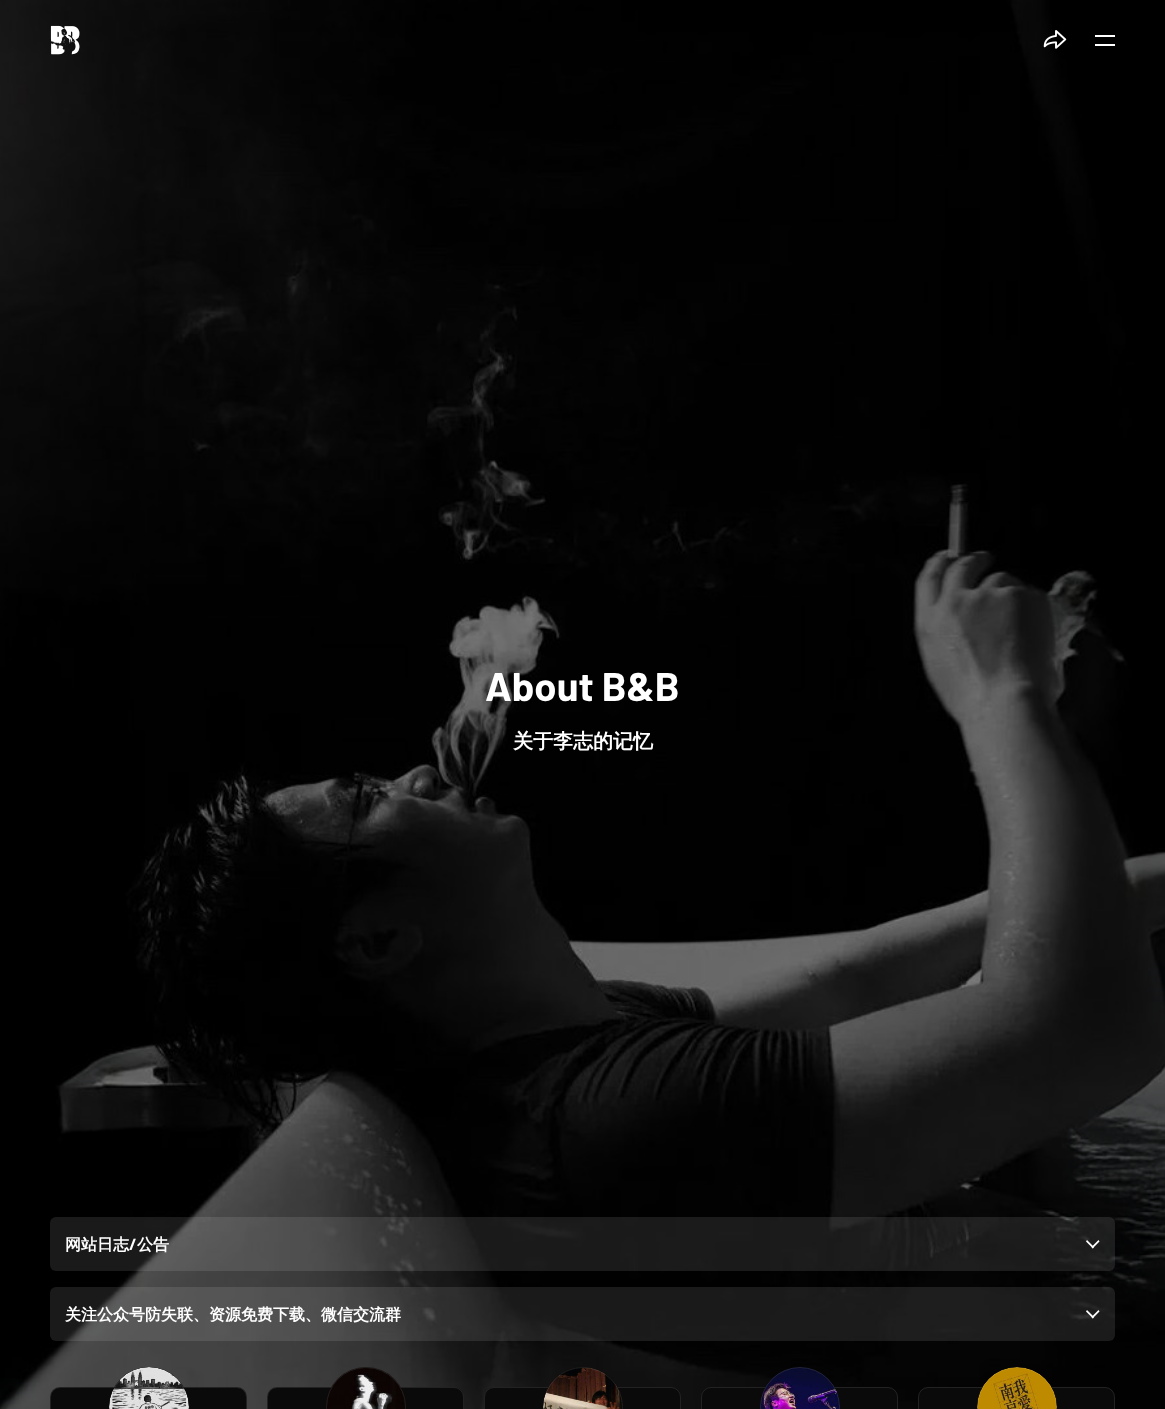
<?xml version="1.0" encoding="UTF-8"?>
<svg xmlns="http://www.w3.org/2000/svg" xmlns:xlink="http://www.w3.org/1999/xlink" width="1165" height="1409">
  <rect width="100%" height="100%" fill="#ffffff" />
  <image x="0" y="0" width="1165" height="1409" xlink:href="image3.png" />
  <image x="50" y="25" width="30" height="30" xlink:href="image1.png" />
  <image x="1043" y="30" width="24" height="19" xlink:href="image2.png" />
  <rect x="1095" y="35" width="20" height="2" fill="#ffffff" />
  <rect x="1095" y="44" width="20" height="2" fill="#ffffff" />
  <rect x="50" y="1217" width="1065" height="54" rx="6" fill="#ffffff" fill-opacity="0.1" />
  <path d="M 1087 1240 l 7 7 l -1 1.5 l -7 -7 z" fill="#ffffff" />
  <path d="M 1091.5 1247 l 7 -7 l 1 1.5 l -7 7 z" fill="#ffffff" />
  <rect x="50" y="1287" width="1065" height="54" rx="6" fill="#ffffff" fill-opacity="0.1" />
  <path d="M 1087 1310 l 7 7 l -1 1.5 l -7 -7 z" fill="#ffffff" />
  <path d="M 1091.5 1317 l 7 -7 l 1 1.5 l -7 7 z" fill="#ffffff" />
  <rect x="50" y="1387" width="197" height="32" rx="10" fill="#0a0a0a" />
  <rect x="50.5" y="1387.5" width="196" height="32" rx="9.5" fill="none" stroke="#ffffff" stroke-opacity="0.1" />
  <circle cx="149" cy="1407" r="40" fill="#0a0a0a" />
  <image x="109" y="1367" width="80" height="42" xlink:href="image4.png" />
  <circle cx="149" cy="1407" r="39.5" fill="none" stroke="#ffffff" stroke-opacity="0.1" />
  <rect x="267" y="1387" width="197" height="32" rx="10" fill="#0a0a0a" />
  <rect x="267.5" y="1387.5" width="196" height="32" rx="9.5" fill="none" stroke="#ffffff" stroke-opacity="0.1" />
  <circle cx="366" cy="1407" r="40" fill="#0a0a0a" />
  <image x="326" y="1367" width="80" height="42" xlink:href="image5.png" />
  <circle cx="366" cy="1407" r="39.5" fill="none" stroke="#ffffff" stroke-opacity="0.1" />
  <rect x="484" y="1387" width="197" height="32" rx="10" fill="#0a0a0a" />
  <rect x="484.5" y="1387.5" width="196" height="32" rx="9.5" fill="none" stroke="#ffffff" stroke-opacity="0.1" />
  <circle cx="583" cy="1407" r="40" fill="#0a0a0a" />
  <image x="543" y="1367" width="80" height="42" xlink:href="image6.png" />
  <circle cx="583" cy="1407" r="39.5" fill="none" stroke="#ffffff" stroke-opacity="0.1" />
  <rect x="701" y="1387" width="197" height="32" rx="10" fill="#0a0a0a" />
  <rect x="701.5" y="1387.5" width="196" height="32" rx="9.5" fill="none" stroke="#ffffff" stroke-opacity="0.1" />
  <circle cx="800" cy="1407" r="40" fill="#0a0a0a" />
  <image x="760" y="1367" width="80" height="42" xlink:href="image7.png" />
  <circle cx="800" cy="1407" r="39.5" fill="none" stroke="#ffffff" stroke-opacity="0.1" />
  <rect x="918" y="1387" width="197" height="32" rx="10" fill="#0a0a0a" />
  <rect x="918.5" y="1387.5" width="196" height="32" rx="9.5" fill="none" stroke="#ffffff" stroke-opacity="0.1" />
  <circle cx="1017" cy="1407" r="40" fill="#0a0a0a" />
  <image x="977" y="1367" width="80" height="42" xlink:href="image8.png" />
  <circle cx="1017" cy="1407" r="39.5" fill="none" stroke="#ffffff" stroke-opacity="0.1" />
  <text x="485" y="701" style="font-family: Barlow; font-size: 40px; font-weight: bold; fill: #ffffff">About B&amp;B</text>
  <text x="513" y="748" style="font-family: WenQuanYi Zen Hei; font-size: 20px; font-weight: bold; fill: #ffffff">关于李志的记忆</text>
  <text x="65" y="1250" style="font-family: WenQuanYi Zen Hei; font-size: 16px; font-weight: bold; fill: #ffffff">网站日志</text>
  <text x="129" y="1250" style="font-family: Barlow; font-size: 16px; font-weight: bold; fill: #ffffff">/</text>
  <text x="137" y="1250" style="font-family: WenQuanYi Zen Hei; font-size: 16px; font-weight: bold; fill: #ffffff">公告</text>
  <text x="65" y="1320" style="font-family: WenQuanYi Zen Hei; font-size: 16px; font-weight: bold; fill: #ffffff">关注公众号防失联、资源免费下载、微信交流群</text>
</svg>
